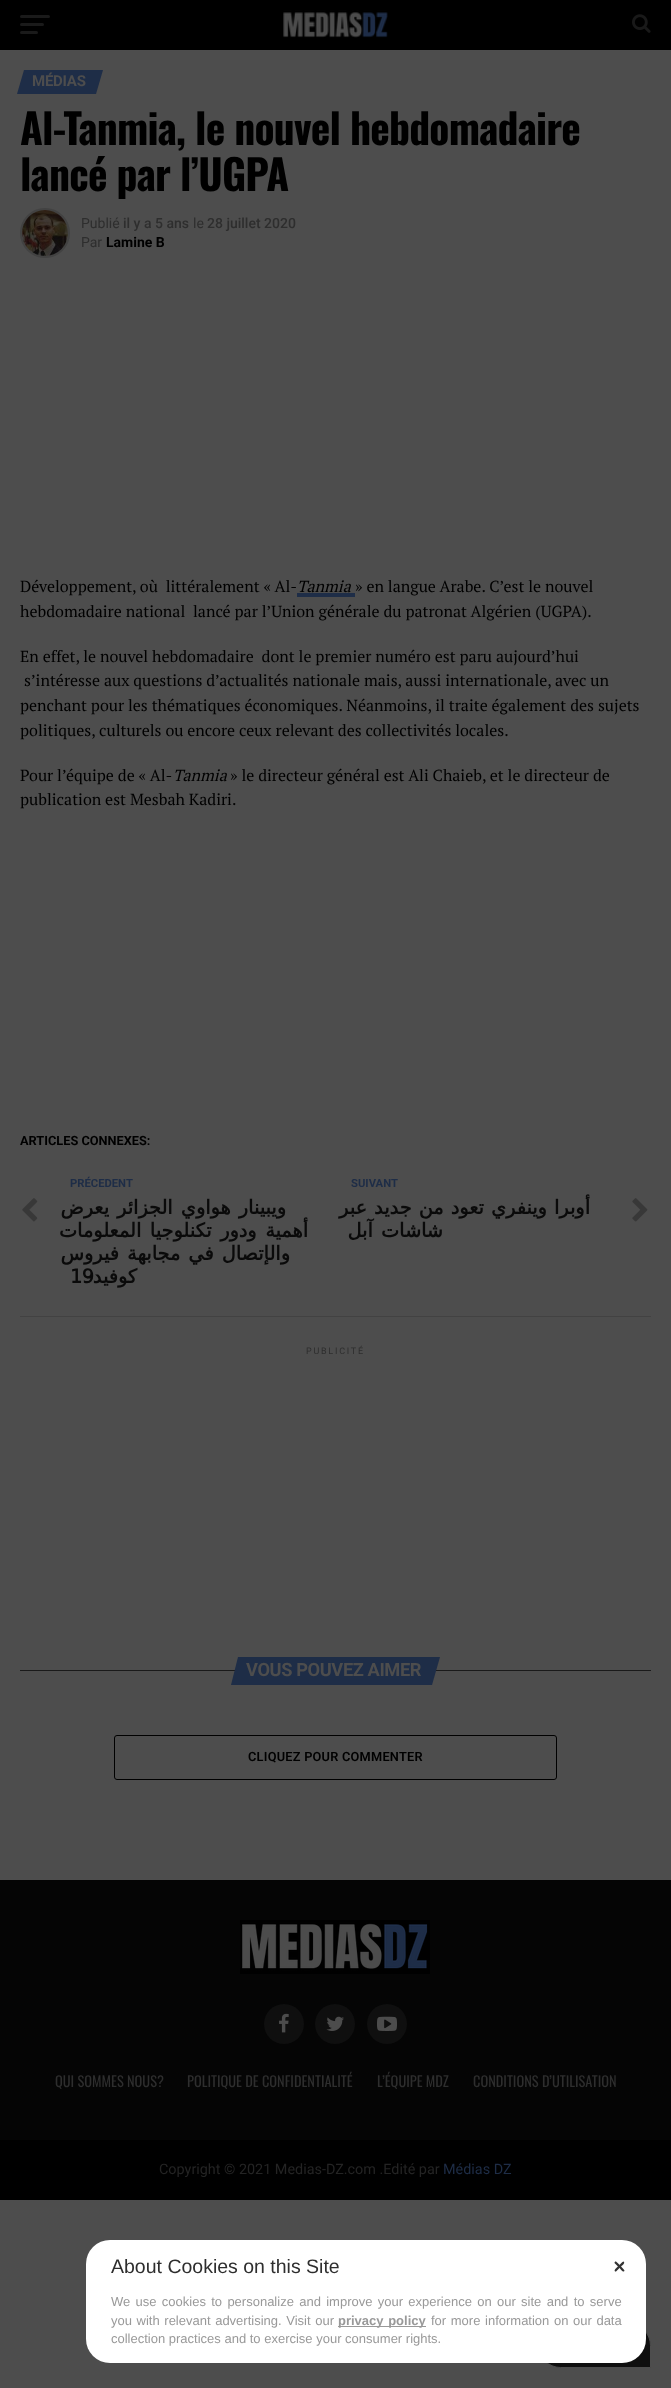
<?xml version="1.0" encoding="UTF-8"?>
<svg xmlns="http://www.w3.org/2000/svg" xmlns:xlink="http://www.w3.org/1999/xlink" width="671" height="2388">
  <rect width="100%" height="100%" fill="#4d4d4d" />
  <rect width="671" height="50" fill="#000000" />
  <rect x="20" y="15" width="30" height="3" rx="1.5" fill="#1a1a1a" />
  <rect x="20" y="23" width="24" height="3" rx="1.5" fill="#1a1a1a" />
  <rect x="20" y="31" width="18" height="3" rx="1.5" fill="#1a1a1a" />
  <image x="283" y="10" width="106" height="28" xlink:href="image1.png" />
  <image x="632" y="14" width="19" height="19" xlink:href="image2.png" />
  <path d="M 24 70 h 79 l -7 24 h -79 z" fill="#1e2d47" />
  <circle cx="45" cy="233" r="24" fill="none" stroke="#424242" stroke-width="2" />
  <image x="22" y="210" width="46" height="46" xlink:href="image3.png" />
  <rect x="297" y="593" width="58" height="4" fill="#1e2d47" />
  <rect x="20" y="1316" width="631" height="1" fill="#424242" />
  <image x="22" y="1198" width="16" height="24" xlink:href="image4.png" />
  <image x="632" y="1198" width="16" height="24" xlink:href="image5.png" />
  <rect x="20" y="1670" width="631" height="1" fill="#1a1a1a" />
  <path d="M 238 1657 h 202 l -8 28 h -201 z" fill="#1e2d47" />
  <rect x="114.5" y="1735.5" width="442" height="44" rx="2.5" fill="none" stroke="#000000" />
  <rect y="1880" width="671" height="260" fill="#050505" />
  <image x="240" y="1920" width="190" height="54" xlink:href="image6.png" />
  <circle cx="284" cy="2024" r="20" fill="#0f0f0f" />
  <image x="279" y="2013" width="10" height="20" xlink:href="image7.png" />
  <circle cx="335" cy="2024" r="20" fill="#0f0f0f" />
  <image x="326" y="2016" width="18" height="15" xlink:href="image8.png" />
  <circle cx="387" cy="2024" r="20" fill="#0f0f0f" />
  <image x="377" y="2016" width="20" height="15" xlink:href="image9.png" />
  <rect y="2140" width="671" height="60" fill="#000000" />
  <path d="M 560.5 2323.5 h 68 c 12 0 22 10 22 22 v 22 h -90 c -12 0 -22 -10 -22 -22 c 0 -12 10 -22 22 -22 z" fill="#0f0f0f" stroke="#4d4d4d" />
  <rect x="86" y="2240" width="560" height="123" rx="24" fill="#ffffff" />
  <path d="M 616.5 2262 c 1 1 8 7.5 8 8.5 l -0.5 1 c -1.5 0.5 -3.5 -2.5 -4 -3 l -5.5 -5.5 c 0 -1 1 -2 2 -1 z" fill="#333333" />
  <path d="M 615 2269.5 c 1 -1 7.5 -8 8.5 -8 l 0.5 0.5 c 1 1.5 -2 3.5 -2.5 4 l -5.5 5.5 c -1 0.5 -2 -1 -1 -2 z" fill="#333333" />
  <rect x="338" y="2326" width="88" height="1" fill="#999999" />
  <text x="32" y="86" style="font-family: Roboto; font-size: 15px; font-weight: bold; letter-spacing: -0.25px; fill: #4d4d4d">MÉDIAS</text>
  <text x="20" y="145" style="font-family: Oswald; font-size: 41.6px; font-weight: bold; letter-spacing: -0.8px; fill: #000000">Al-Tanmia, le nouvel hebdomadaire</text>
  <text x="20" y="191" style="font-family: Oswald; font-size: 41.6px; font-weight: bold; letter-spacing: -0.8px; fill: #000000">lancé par l’UGPA</text>
  <text x="81" y="228" style="font-family: Roboto; font-size: 14px; fill: #2e2e2e">Publié</text>
  <text x="123" y="228" style="font-family: Roboto; font-size: 14px; font-weight: 500; fill: #2e2e2e">il y a 5 ans</text>
  <text x="193" y="228" style="font-family: Roboto; font-size: 14px; fill: #2e2e2e">le</text>
  <text x="207" y="228" style="font-family: Roboto; font-size: 14px; font-weight: 500; fill: #2e2e2e">28 juillet 2020</text>
  <text x="81" y="247" style="font-family: Roboto; font-size: 14px; fill: #2e2e2e">Par</text>
  <text x="106" y="247" style="font-family: Roboto; font-size: 14px; font-weight: bold; fill: #000000">Lamine B</text>
  <text x="20" y="592" style="font-family: PT Serif; font-size: 16px; fill: #000000" xml:space="preserve">Développement, où  littéralement « Al-</text>
  <text x="297" y="592" style="font-family: PT Serif; font-size: 16px; font-style: italic; fill: #000000">Tanmia</text>
  <text x="355" y="592" style="font-family: PT Serif; font-size: 16px; fill: #000000">» en langue Arabe. C’est le nouvel</text>
  <text x="20" y="617" style="font-family: PT Serif; font-size: 16px; fill: #000000" xml:space="preserve">hebdomadaire national  lancé par l’Union générale du patronat Algérien (UGPA).</text>
  <text x="20" y="662" style="font-family: PT Serif; font-size: 16px; fill: #000000" xml:space="preserve">En effet, le nouvel hebdomadaire  dont le premier numéro est paru aujourd’hui</text>
  <text x="24" y="686" style="font-family: PT Serif; font-size: 16px; fill: #000000">s’intéresse aux questions d’actualités nationale mais, aussi internationale, avec un</text>
  <text x="20" y="711" style="font-family: PT Serif; font-size: 16px; fill: #000000">penchant pour les thématiques économiques. Néanmoins, il traite également des sujets</text>
  <text x="20" y="736" style="font-family: PT Serif; font-size: 16px; fill: #000000">politiques, culturels ou encore ceux relevant des collectivités locales.</text>
  <text x="20" y="781" style="font-family: PT Serif; font-size: 16px; fill: #000000">Pour l’équipe de « Al-</text>
  <text x="173" y="781" style="font-family: PT Serif; font-size: 16px; font-style: italic; fill: #000000">Tanmia</text>
  <text x="230" y="781" style="font-family: PT Serif; font-size: 16px; fill: #000000">» le directeur général est Ali Chaieb, et le directeur de</text>
  <text x="20" y="805" style="font-family: PT Serif; font-size: 16px; fill: #000000">publication est Mesbah Kadiri.</text>
  <text x="20" y="1145" style="font-family: Roboto; font-size: 12.75px; font-weight: bold; fill: #000000">ARTICLES CONNEXES:</text>
  <text x="70" y="1187" style="font-family: Roboto; font-size: 11.25px; font-weight: bold; fill: #1e2d47">PRÉCEDENT</text>
  <text x="286" y="1214" word-spacing="2" style="font-family: DejaVu Sans; font-size: 19.25px; font-weight: bold; letter-spacing: -0.4px; direction: rtl; fill: #0a0a0a">ويبينار هواوي الجزائر يعرض</text>
  <text x="308" y="1237" word-spacing="2.5" style="font-family: DejaVu Sans; font-size: 19.25px; font-weight: bold; letter-spacing: -0.4px; direction: rtl; fill: #0a0a0a">أهمية ودور تكنلوجيا المعلومات</text>
  <text x="290" y="1260" word-spacing="2" style="font-family: DejaVu Sans; font-size: 19.25px; font-weight: bold; letter-spacing: -0.4px; direction: rtl; fill: #0a0a0a">والإتصال في مجابهة فيروس</text>
  <text x="70" y="1283" style="font-family: DejaVu Sans; font-size: 19.25px; font-weight: bold; letter-spacing: -0.4px; fill: #0a0a0a">19</text>
  <text x="137" y="1283" style="font-family: DejaVu Sans; font-size: 19.25px; font-weight: bold; letter-spacing: -0.4px; direction: rtl; fill: #0a0a0a">كوفيد-</text>
  <text x="351" y="1187" style="font-family: Roboto; font-size: 11.25px; font-weight: bold; fill: #1e2d47">SUIVANT</text>
  <text x="590" y="1214" word-spacing="1" style="font-family: DejaVu Sans; font-size: 19.25px; font-weight: bold; letter-spacing: -0.4px; direction: rtl; fill: #0a0a0a">أوبرا وينفري تعود من جديد عبر</text>
  <text x="443" y="1237" word-spacing="2" style="font-family: DejaVu Sans; font-size: 19.25px; font-weight: bold; letter-spacing: -0.4px; direction: rtl; fill: #0a0a0a">شاشات آبل</text>
  <text x="306" y="1354" style="font-family: Roboto; font-size: 9px; letter-spacing: 1.75px; fill: #2e2e2e">PUBLICITÉ</text>
  <text x="246" y="1676" style="font-family: Roboto; font-size: 18.25px; font-weight: bold; letter-spacing: -0.4px; fill: #4d4d4d">VOUS POUVEZ AIMER</text>
  <text x="248" y="1761" style="font-family: Roboto; font-size: 12.75px; font-weight: 600; letter-spacing: 0.25px; fill: #000000">CLIQUEZ POUR COMMENTER</text>
  <text x="55" y="2087" style="font-family: Oswald; font-size: 14.4px; fill: #2e2e2e">QUI SOMMES NOUS?</text>
  <text x="187" y="2087" style="font-family: Oswald; font-size: 14.4px; fill: #2e2e2e">POLITIQUE DE CONFIDENTIALITÉ</text>
  <text x="377" y="2087" style="font-family: Oswald; font-size: 14.4px; fill: #2e2e2e">L’ÉQUIPE MDZ</text>
  <text x="473" y="2087" style="font-family: Oswald; font-size: 14.4px; fill: #2e2e2e">CONDITIONS D’UTILISATION</text>
  <text x="159" y="2174" style="font-family: Roboto; font-size: 14.4px; fill: #242424">Copyright © 2021 Medias-DZ.com .Edité par</text>
  <text x="443" y="2174" style="font-family: Roboto; font-size: 14.4px; fill: #1e2d47">Médias DZ</text>
  <text x="111" y="2273" style="font-family: Liberation Sans; font-size: 19.5px; fill: #2e2e2e">About Cookies on this Site</text>
  <text x="111" y="2306" word-spacing="1.7" style="font-family: Liberation Sans; font-size: 13px; fill: #999999">We use cookies to personalize and improve your experience on our site and to serve</text>
  <text x="111" y="2325" word-spacing="1" style="font-family: Liberation Sans; font-size: 13px; fill: #999999">you with relevant advertising. Visit our</text>
  <text x="338" y="2325" word-spacing="1" style="font-family: Liberation Sans; font-size: 13px; font-weight: bold; fill: #999999">privacy policy</text>
  <text x="431" y="2325" word-spacing="1" style="font-family: Liberation Sans; font-size: 13px; fill: #999999">for more information on our data</text>
  <text x="111" y="2343" style="font-family: Liberation Sans; font-size: 13px; fill: #999999">collection practices and to exercise your consumer rights.</text>
</svg>
